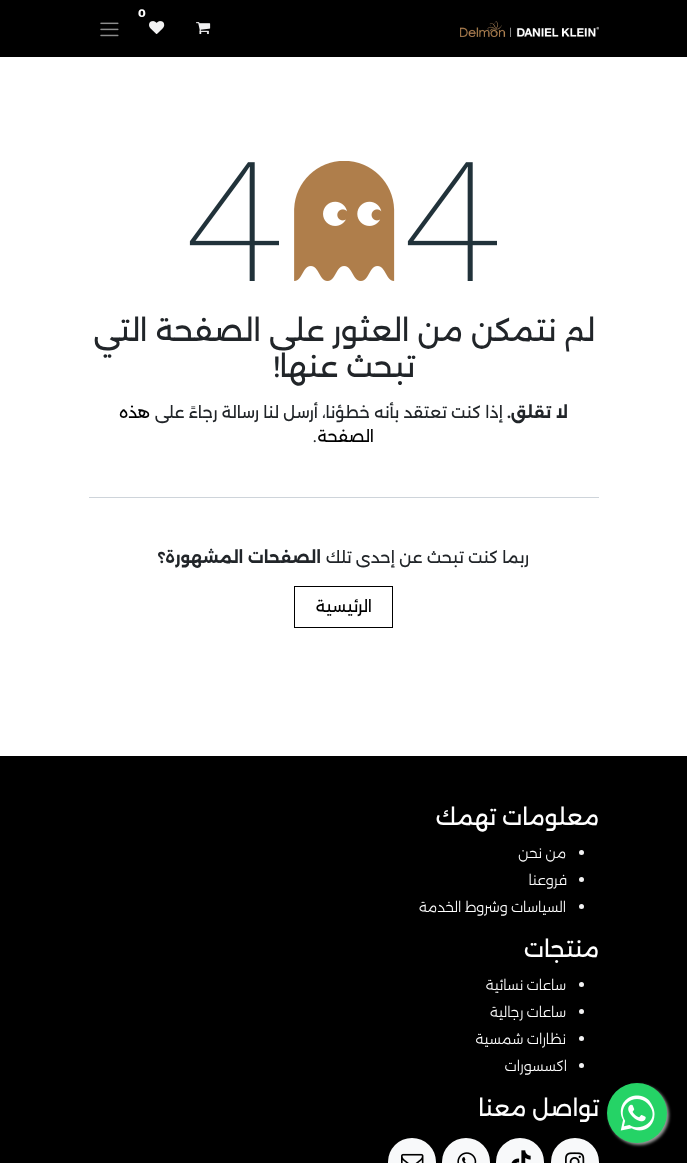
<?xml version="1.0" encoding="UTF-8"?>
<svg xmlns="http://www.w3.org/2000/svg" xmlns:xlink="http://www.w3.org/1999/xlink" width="687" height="1163">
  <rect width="100%" height="100%" fill="#ffffff" />
  <rect y="756" width="687" height="407" fill="#000000" />
  <rect x="609" y="1085" width="60" height="60" rx="30" fill="#999999" filter="blur(1.5px)" />
  <circle cx="637" cy="1113" r="30" fill="#25d366" />
  <image x="620" y="1095" width="35" height="36" xlink:href="image1.png" />
  <rect width="687" height="57" fill="#000000" />
  <image x="149" y="21" width="16" height="13" xlink:href="image2.png" />
  <image x="196" y="22" width="15" height="13" xlink:href="image3.png" />
  <image x="100" y="22" width="19" height="15" xlink:href="image4.png" />
  <image x="460" y="21" width="139" height="16" xlink:href="image5.png" />
  <image x="189" y="161" width="308" height="120" xlink:href="image6.png" />
  <rect x="89" y="497" width="510" height="1" fill="#ced4da" />
  <rect x="294.5" y="586.5" width="98" height="41" fill="none" stroke="#000000" />
  <circle cx="581.5" cy="852.5" r="2.5" fill="#f2f2f3" />
  <circle cx="581.5" cy="879.5" r="2.5" fill="#f2f2f3" />
  <circle cx="581.5" cy="906.5" r="2.5" fill="#f2f2f3" />
  <circle cx="581.5" cy="984.5" r="2.5" fill="#f2f2f3" />
  <circle cx="581.5" cy="1011.5" r="2.5" fill="#f2f2f3" />
  <circle cx="581.5" cy="1038.5" r="2.5" fill="#f2f2f3" />
  <circle cx="581.5" cy="1065.5" r="2.5" fill="#f2f2f3" />
  <circle cx="575" cy="1162" r="24" fill="#f8f9fa" />
  <image x="565" y="1152" width="20" height="11" xlink:href="image7.png" />
  <circle cx="520" cy="1162" r="24" fill="#f8f9fa" />
  <image x="511" y="1150" width="20" height="13" xlink:href="image8.png" />
  <circle cx="466" cy="1162" r="24" fill="#f8f9fa" />
  <image x="457" y="1152" width="20" height="11" xlink:href="image9.png" />
  <circle cx="412" cy="1162" r="24" fill="#f8f9fa" />
  <image x="401" y="1153" width="23" height="10" xlink:href="image10.png" />
  <text x="138" y="17" style="font-family: Alexandria; font-size: 11px; font-weight: bold; fill: #ffffff">0</text>
  <text x="595" y="341" style="font-family: Alexandria; font-size: 29.8px; direction: rtl; fill: #212529">لم نتمكن من العثور على الصفحة التي</text>
  <text x="415" y="377" style="font-family: Alexandria; font-size: 29.8px; direction: rtl; fill: #212529">تبحث عنها!</text>
  <text x="568" y="418" style="font-family: Alexandria; font-size: 16px; font-weight: bold; direction: rtl; fill: #212529">لا تقلق.</text>
  <text x="503" y="418" style="font-family: Alexandria; font-size: 16px; direction: rtl; fill: #212529">إذا كنت تعتقد بأنه خطؤنا، أرسل لنا رسالة رجاءً على</text>
  <text x="150" y="418" style="font-family: Alexandria; font-size: 16px; direction: rtl; fill: #000000">هذه</text>
  <text x="374" y="442" style="font-family: Alexandria; font-size: 16px; direction: rtl; fill: #000000">الصفحة</text>
  <text x="313" y="442" style="font-family: Alexandria; font-size: 16px; fill: #212529">.</text>
  <text x="529" y="563" style="font-family: Alexandria; font-size: 16px; direction: rtl; fill: #212529">ربما كنت تبحث عن إحدى تلك</text>
  <text x="321" y="563" style="font-family: Alexandria; font-size: 16px; font-weight: bold; direction: rtl; fill: #212529">الصفحات المشهورة؟</text>
  <text x="372" y="612" style="font-family: Alexandria; font-size: 16px; direction: rtl; fill: #000000">الرئيسية</text>
  <text x="599" y="825" style="font-family: Alexandria; font-size: 22.5px; direction: rtl; fill: #ffffff">معلومات تهمك</text>
  <text x="566" y="858" style="font-family: Alexandria; font-size: 14px; font-weight: 300; direction: rtl; fill: #ffffff">من نحن</text>
  <text x="567" y="885" style="font-family: Alexandria; font-size: 14px; font-weight: 300; direction: rtl; fill: #ffffff">فروعنا</text>
  <text x="566" y="912" style="font-family: Alexandria; font-size: 14px; font-weight: 300; direction: rtl; fill: #ffffff">السياسات وشروط الخدمة</text>
  <text x="599" y="957" style="font-family: Alexandria; font-size: 22.5px; direction: rtl; fill: #ffffff">منتجات</text>
  <text x="566" y="990" style="font-family: Alexandria; font-size: 14px; font-weight: 300; direction: rtl; fill: #ffffff">ساعات نسائية</text>
  <text x="566" y="1017" style="font-family: Alexandria; font-size: 14px; font-weight: 300; direction: rtl; fill: #ffffff">ساعات رجالية</text>
  <text x="566" y="1044" style="font-family: Alexandria; font-size: 14px; font-weight: 300; direction: rtl; fill: #ffffff">نظارات شمسية</text>
  <text x="567" y="1071" style="font-family: Alexandria; font-size: 14px; font-weight: 300; direction: rtl; fill: #ffffff">اكسسورات</text>
  <text x="599" y="1116" style="font-family: Alexandria; font-size: 22.5px; direction: rtl; fill: #ffffff">تواصل معنا</text>
</svg>
